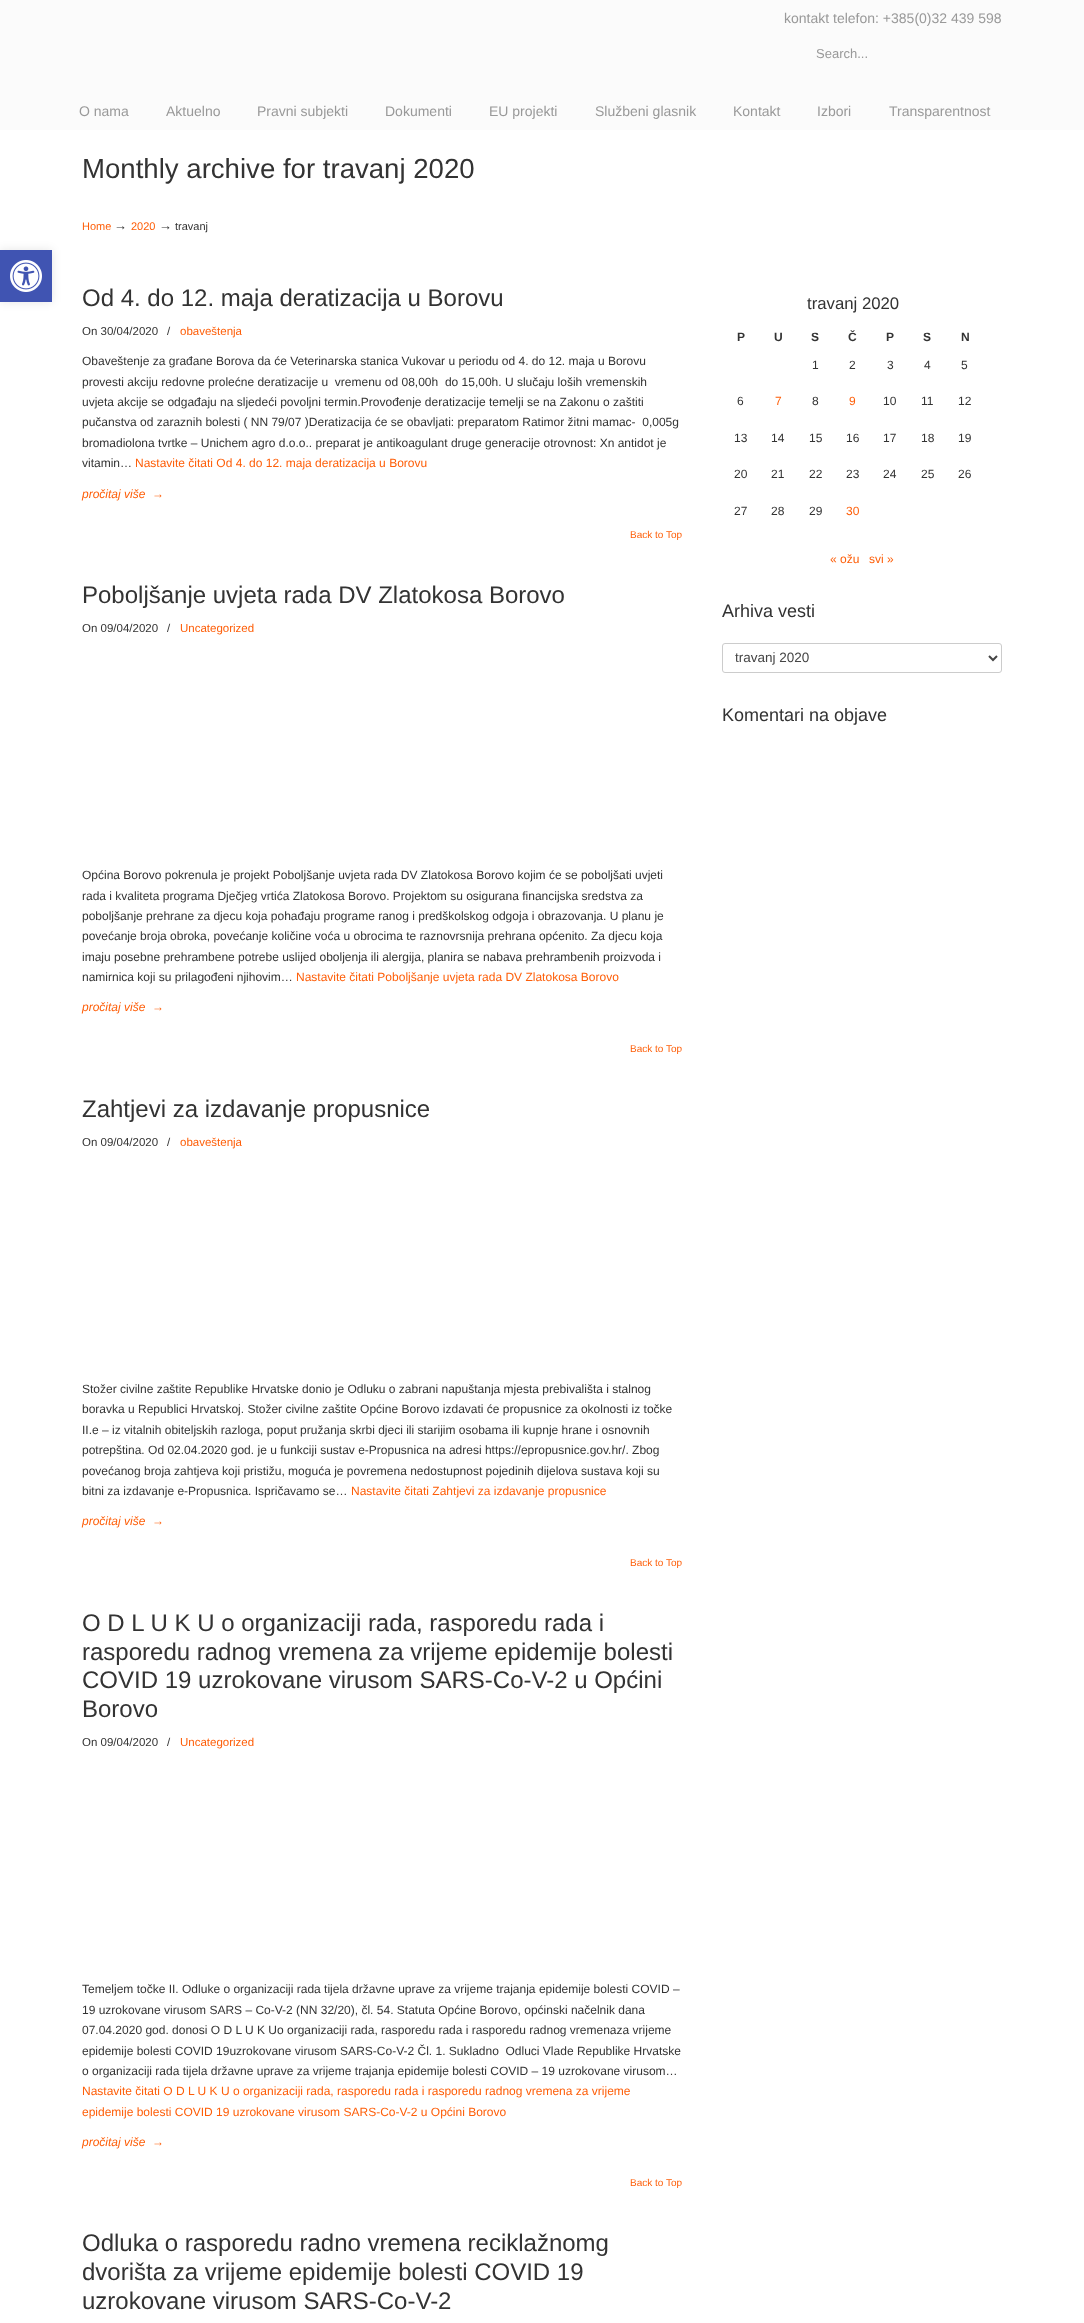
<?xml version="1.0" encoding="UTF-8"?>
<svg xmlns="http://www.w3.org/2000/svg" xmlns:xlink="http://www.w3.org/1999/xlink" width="1084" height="2323">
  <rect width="100%" height="100%" fill="#fbfbfb" />
  <rect y="130" width="1084" height="2193" fill="#ffffff" />
  <rect y="250" width="52" height="52" fill="#000000" fill-opacity="0.1" filter="blur(5px)" />
  <rect y="250" width="52" height="52" fill="#4054b2" />
  <image x="10" y="260" width="32" height="32" xlink:href="image1.png" />
  <rect x="722.5" y="643.5" width="279" height="29" rx="2.5" fill="none" stroke="#cccccc" />
  <path d="M 989 656 l 4 4 l 4 -4" fill="none" stroke="#454545" stroke-width="2" />
  <text x="784" y="23" style="font-family: Liberation Sans; font-size: 14px; fill: #999999">kontakt telefon: +385(0)32 439 598</text>
  <text x="816" y="58" style="font-family: Liberation Sans; font-size: 13px; fill: #999999">Search...</text>
  <text x="79" y="116" style="font-family: Liberation Sans; font-size: 14px; fill: #999999">O nama</text>
  <text x="166" y="116" style="font-family: Liberation Sans; font-size: 14px; fill: #999999">Aktuelno</text>
  <text x="257" y="116" style="font-family: Liberation Sans; font-size: 14px; fill: #999999">Pravni subjekti</text>
  <text x="385" y="116" style="font-family: Liberation Sans; font-size: 14px; fill: #999999">Dokumenti</text>
  <text x="489" y="116" style="font-family: Liberation Sans; font-size: 14px; fill: #999999">EU projekti</text>
  <text x="595" y="116" style="font-family: Liberation Sans; font-size: 14px; fill: #999999">Službeni glasnik</text>
  <text x="733" y="116" style="font-family: Liberation Sans; font-size: 14px; fill: #999999">Kontakt</text>
  <text x="817" y="116" style="font-family: Liberation Sans; font-size: 14px; fill: #999999">Izbori</text>
  <text x="889" y="116" style="font-family: Liberation Sans; font-size: 14px; fill: #999999">Transparentnost</text>
  <text x="82" y="178" style="font-family: Liberation Sans; font-size: 27.6px; fill: #333333">Monthly archive for travanj 2020</text>
  <text x="82" y="230" style="font-family: Liberation Sans; font-size: 11px; fill: #fe5e08">Home</text>
  <text x="114" y="230" style="font-family: Liberation Sans; font-size: 13px; fill: #333333">→</text>
  <text x="131" y="230" style="font-family: Liberation Sans; font-size: 11px; fill: #fe5e08">2020</text>
  <text x="159" y="230" style="font-family: Liberation Sans; font-size: 13px; fill: #333333">→</text>
  <text x="175" y="230" style="font-family: Liberation Sans; font-size: 11px; fill: #333333">travanj</text>
  <text x="82" y="306" style="font-family: Liberation Sans; font-size: 24px; fill: #333333">Od 4. do 12. maja deratizacija u Borovu</text>
  <text x="82" y="335" style="font-family: Liberation Sans; font-size: 11.5px; fill: #333333">On 30/04/2020</text>
  <text x="167" y="335" style="font-family: Liberation Sans; font-size: 11.5px; fill: #333333">/</text>
  <text x="180" y="335" style="font-family: Liberation Sans; font-size: 11.5px; fill: #fe5e08">obaveštenja</text>
  <text x="82" y="365" style="font-family: Liberation Sans; font-size: 12px; fill: #333333">Obaveštenje za građane Borova da će Veterinarska stanica Vukovar u periodu od 4. do 12. maja u Borovu</text>
  <text x="82" y="386" style="font-family: Liberation Sans; font-size: 12px; fill: #333333" xml:space="preserve">provesti akciju redovne prolećne deratizacije u  vremenu od 08,00h  do 15,00h. U slučaju loših vremenskih</text>
  <text x="82" y="406" style="font-family: Liberation Sans; font-size: 12px; fill: #333333">uvjeta akcije se odgađaju na sljedeći povoljni termin.Provođenje deratizacije temelji se na Zakonu o zaštiti</text>
  <text x="82" y="426" style="font-family: Liberation Sans; font-size: 12px; fill: #333333" xml:space="preserve">pučanstva od zaraznih bolesti ( NN 79/07 )Deratizacija će se obavljati: preparatom Ratimor žitni mamac-  0,005g</text>
  <text x="82" y="447" style="font-family: Liberation Sans; font-size: 12px; fill: #333333">bromadiolona tvrtke – Unichem agro d.o.o.. preparat je antikoagulant druge generacije otrovnost: Xn antidot je</text>
  <text x="82" y="467" style="font-family: Liberation Sans; font-size: 12px; fill: #333333">vitamin…</text>
  <text x="135" y="467" style="font-family: Liberation Sans; font-size: 12px; fill: #fe5e08">Nastavite čitati Od 4. do 12. maja deratizacija u Borovu</text>
  <text x="82" y="498" style="font-family: Liberation Sans; font-size: 12px; font-style: italic; fill: #fe5e08">pročitaj više</text>
  <text x="152" y="498" style="font-family: Liberation Sans; font-size: 12px; fill: #fe5e08">→</text>
  <text x="630" y="538" style="font-family: Liberation Sans; font-size: 10px; fill: #fe5e08">Back to Top</text>
  <text x="82" y="603" style="font-family: Liberation Sans; font-size: 24px; fill: #333333">Poboljšanje uvjeta rada DV Zlatokosa Borovo</text>
  <text x="82" y="632" style="font-family: Liberation Sans; font-size: 11.5px; fill: #333333">On 09/04/2020</text>
  <text x="167" y="632" style="font-family: Liberation Sans; font-size: 11.5px; fill: #333333">/</text>
  <text x="180" y="632" style="font-family: Liberation Sans; font-size: 11.5px; fill: #fe5e08">Uncategorized</text>
  <text x="82" y="879" style="font-family: Liberation Sans; font-size: 12px; fill: #333333">Općina Borovo pokrenula je projekt Poboljšanje uvjeta rada DV Zlatokosa Borovo kojim će se poboljšati uvjeti</text>
  <text x="82" y="900" style="font-family: Liberation Sans; font-size: 12px; fill: #333333">rada i kvaliteta programa Dječjeg vrtića Zlatokosa Borovo. Projektom su osigurana financijska sredstva za</text>
  <text x="82" y="920" style="font-family: Liberation Sans; font-size: 12px; fill: #333333">poboljšanje prehrane za djecu koja pohađaju programe ranog i predškolskog odgoja i obrazovanja. U planu je</text>
  <text x="82" y="940" style="font-family: Liberation Sans; font-size: 12px; fill: #333333">povećanje broja obroka, povećanje količine voća u obrocima te raznovrsnija prehrana općenito. Za djecu koja</text>
  <text x="82" y="961" style="font-family: Liberation Sans; font-size: 12px; fill: #333333">imaju posebne prehrambene potrebe uslijed oboljenja ili alergija, planira se nabava prehrambenih proizvoda i</text>
  <text x="82" y="981" style="font-family: Liberation Sans; font-size: 12px; fill: #333333">namirnica koji su prilagođeni njihovim…</text>
  <text x="296" y="981" style="font-family: Liberation Sans; font-size: 12px; fill: #fe5e08">Nastavite čitati Poboljšanje uvjeta rada DV Zlatokosa Borovo</text>
  <text x="82" y="1011" style="font-family: Liberation Sans; font-size: 12px; font-style: italic; fill: #fe5e08">pročitaj više</text>
  <text x="152" y="1011" style="font-family: Liberation Sans; font-size: 12px; fill: #fe5e08">→</text>
  <text x="630" y="1052" style="font-family: Liberation Sans; font-size: 10px; fill: #fe5e08">Back to Top</text>
  <text x="82" y="1117" style="font-family: Liberation Sans; font-size: 24px; fill: #333333">Zahtjevi za izdavanje propusnice</text>
  <text x="82" y="1146" style="font-family: Liberation Sans; font-size: 11.5px; fill: #333333">On 09/04/2020</text>
  <text x="167" y="1146" style="font-family: Liberation Sans; font-size: 11.5px; fill: #333333">/</text>
  <text x="180" y="1146" style="font-family: Liberation Sans; font-size: 11.5px; fill: #fe5e08">obaveštenja</text>
  <text x="82" y="1393" style="font-family: Liberation Sans; font-size: 12px; fill: #333333">Stožer civilne zaštite Republike Hrvatske donio je Odluku o zabrani napuštanja mjesta prebivališta i stalnog</text>
  <text x="82" y="1413" style="font-family: Liberation Sans; font-size: 12px; fill: #333333">boravka u Republici Hrvatskoj. Stožer civilne zaštite Općine Borovo izdavati će propusnice za okolnosti iz točke</text>
  <text x="82" y="1434" style="font-family: Liberation Sans; font-size: 12px; fill: #333333">II.e – iz vitalnih obiteljskih razloga, poput pružanja skrbi djeci ili starijim osobama ili kupnje hrane i osnovnih</text>
  <text x="82" y="1454" style="font-family: Liberation Sans; font-size: 12px; fill: #333333">potrepština. Od 02.04.2020 god. je u funkciji sustav e-Propusnica na adresi https://epropusnice.gov.hr/. Zbog</text>
  <text x="82" y="1475" style="font-family: Liberation Sans; font-size: 12px; fill: #333333">povećanog broja zahtjeva koji pristižu, moguća je povremena nedostupnost pojedinih dijelova sustava koji su</text>
  <text x="82" y="1495" style="font-family: Liberation Sans; font-size: 12px; fill: #333333">bitni za izdavanje e-Propusnica. Ispričavamo se…</text>
  <text x="351" y="1495" style="font-family: Liberation Sans; font-size: 12px; fill: #fe5e08">Nastavite čitati Zahtjevi za izdavanje propusnice</text>
  <text x="82" y="1525" style="font-family: Liberation Sans; font-size: 12px; font-style: italic; fill: #fe5e08">pročitaj više</text>
  <text x="152" y="1525" style="font-family: Liberation Sans; font-size: 12px; fill: #fe5e08">→</text>
  <text x="630" y="1566" style="font-family: Liberation Sans; font-size: 10px; fill: #fe5e08">Back to Top</text>
  <text x="82" y="1631" style="font-family: Liberation Sans; font-size: 24px; fill: #333333">O D L U K U o organizaciji rada, rasporedu rada i</text>
  <text x="82" y="1660" style="font-family: Liberation Sans; font-size: 24px; fill: #333333">rasporedu radnog vremena za vrijeme epidemije bolesti</text>
  <text x="82" y="1688" style="font-family: Liberation Sans; font-size: 24px; fill: #333333">COVID 19 uzrokovane virusom SARS-Co-V-2 u Općini</text>
  <text x="82" y="1717" style="font-family: Liberation Sans; font-size: 24px; fill: #333333">Borovo</text>
  <text x="82" y="1746" style="font-family: Liberation Sans; font-size: 11.5px; fill: #333333">On 09/04/2020</text>
  <text x="167" y="1746" style="font-family: Liberation Sans; font-size: 11.5px; fill: #333333">/</text>
  <text x="180" y="1746" style="font-family: Liberation Sans; font-size: 11.5px; fill: #fe5e08">Uncategorized</text>
  <text x="82" y="1993" style="font-family: Liberation Sans; font-size: 12px; fill: #333333">Temeljem točke II. Odluke o organizaciji rada tijela državne uprave za vrijeme trajanja epidemije bolesti COVID –</text>
  <text x="82" y="2014" style="font-family: Liberation Sans; font-size: 12px; fill: #333333">19 uzrokovane virusom SARS – Co-V-2 (NN 32/20), čl. 54. Statuta Općine Borovo, općinski načelnik dana</text>
  <text x="82" y="2034" style="font-family: Liberation Sans; font-size: 12px; fill: #333333">07.04.2020 god. donosi O D L U K Uo organizaciji rada, rasporedu rada i rasporedu radnog vremenaza vrijeme</text>
  <text x="82" y="2055" style="font-family: Liberation Sans; font-size: 12px; fill: #333333" xml:space="preserve">epidemije bolesti COVID 19uzrokovane virusom SARS-Co-V-2 Čl. 1. Sukladno  Odluci Vlade Republike Hrvatske</text>
  <text x="82" y="2075" style="font-family: Liberation Sans; font-size: 12px; fill: #333333">o organizaciji rada tijela državne uprave za vrijeme trajanja epidemije bolesti COVID – 19 uzrokovane virusom…</text>
  <text x="82" y="2095" style="font-family: Liberation Sans; font-size: 12px; fill: #fe5e08">Nastavite čitati O D L U K U o organizaciji rada, rasporedu rada i rasporedu radnog vremena za vrijeme</text>
  <text x="82" y="2116" style="font-family: Liberation Sans; font-size: 12px; fill: #fe5e08">epidemije bolesti COVID 19 uzrokovane virusom SARS-Co-V-2 u Općini Borovo</text>
  <text x="82" y="2146" style="font-family: Liberation Sans; font-size: 12px; font-style: italic; fill: #fe5e08">pročitaj više</text>
  <text x="152" y="2146" style="font-family: Liberation Sans; font-size: 12px; fill: #fe5e08">→</text>
  <text x="630" y="2186" style="font-family: Liberation Sans; font-size: 10px; fill: #fe5e08">Back to Top</text>
  <text x="82" y="2251" style="font-family: Liberation Sans; font-size: 24px; fill: #333333">Odluka o rasporedu radno vremena reciklažnomg</text>
  <text x="82" y="2280" style="font-family: Liberation Sans; font-size: 24px; fill: #333333">dvorišta za vrijeme epidemije bolesti COVID 19</text>
  <text x="82" y="2309" style="font-family: Liberation Sans; font-size: 24px; fill: #333333">uzrokovane virusom SARS-Co-V-2</text>
  <text x="807" y="309" style="font-family: Liberation Sans; font-size: 16.75px; fill: #333333">travanj 2020</text>
  <text x="737" y="341" style="font-family: Liberation Sans; font-size: 12px; font-weight: bold; fill: #333333">P</text>
  <text x="774" y="341" style="font-family: Liberation Sans; font-size: 12px; font-weight: bold; fill: #333333">U</text>
  <text x="811" y="341" style="font-family: Liberation Sans; font-size: 12px; font-weight: bold; fill: #333333">S</text>
  <text x="848" y="341" style="font-family: Liberation Sans; font-size: 12px; font-weight: bold; fill: #333333">Č</text>
  <text x="886" y="341" style="font-family: Liberation Sans; font-size: 12px; font-weight: bold; fill: #333333">P</text>
  <text x="923" y="341" style="font-family: Liberation Sans; font-size: 12px; font-weight: bold; fill: #333333">S</text>
  <text x="961" y="341" style="font-family: Liberation Sans; font-size: 12px; font-weight: bold; fill: #333333">N</text>
  <text x="812" y="369" style="font-family: Liberation Sans; font-size: 12px; fill: #333333">1</text>
  <text x="849" y="369" style="font-family: Liberation Sans; font-size: 12px; fill: #333333">2</text>
  <text x="887" y="369" style="font-family: Liberation Sans; font-size: 12px; fill: #333333">3</text>
  <text x="924" y="369" style="font-family: Liberation Sans; font-size: 12px; fill: #333333">4</text>
  <text x="961" y="369" style="font-family: Liberation Sans; font-size: 12px; fill: #333333">5</text>
  <text x="737" y="405" style="font-family: Liberation Sans; font-size: 12px; fill: #333333">6</text>
  <text x="775" y="405" style="font-family: Liberation Sans; font-size: 12px; fill: #fe5e08">7</text>
  <text x="812" y="405" style="font-family: Liberation Sans; font-size: 12px; fill: #333333">8</text>
  <text x="849" y="405" style="font-family: Liberation Sans; font-size: 12px; fill: #fe5e08">9</text>
  <text x="883" y="405" style="font-family: Liberation Sans; font-size: 12px; fill: #333333">10</text>
  <text x="921" y="405" style="font-family: Liberation Sans; font-size: 12px; fill: #333333">11</text>
  <text x="958" y="405" style="font-family: Liberation Sans; font-size: 12px; fill: #333333">12</text>
  <text x="734" y="442" style="font-family: Liberation Sans; font-size: 12px; fill: #333333">13</text>
  <text x="771" y="442" style="font-family: Liberation Sans; font-size: 12px; fill: #333333">14</text>
  <text x="809" y="442" style="font-family: Liberation Sans; font-size: 12px; fill: #333333">15</text>
  <text x="846" y="442" style="font-family: Liberation Sans; font-size: 12px; fill: #333333">16</text>
  <text x="883" y="442" style="font-family: Liberation Sans; font-size: 12px; fill: #333333">17</text>
  <text x="921" y="442" style="font-family: Liberation Sans; font-size: 12px; fill: #333333">18</text>
  <text x="958" y="442" style="font-family: Liberation Sans; font-size: 12px; fill: #333333">19</text>
  <text x="734" y="478" style="font-family: Liberation Sans; font-size: 12px; fill: #333333">20</text>
  <text x="771" y="478" style="font-family: Liberation Sans; font-size: 12px; fill: #333333">21</text>
  <text x="809" y="478" style="font-family: Liberation Sans; font-size: 12px; fill: #333333">22</text>
  <text x="846" y="478" style="font-family: Liberation Sans; font-size: 12px; fill: #333333">23</text>
  <text x="883" y="478" style="font-family: Liberation Sans; font-size: 12px; fill: #333333">24</text>
  <text x="921" y="478" style="font-family: Liberation Sans; font-size: 12px; fill: #333333">25</text>
  <text x="958" y="478" style="font-family: Liberation Sans; font-size: 12px; fill: #333333">26</text>
  <text x="734" y="515" style="font-family: Liberation Sans; font-size: 12px; fill: #333333">27</text>
  <text x="771" y="515" style="font-family: Liberation Sans; font-size: 12px; fill: #333333">28</text>
  <text x="809" y="515" style="font-family: Liberation Sans; font-size: 12px; fill: #333333">29</text>
  <text x="846" y="515" style="font-family: Liberation Sans; font-size: 12px; fill: #fe5e08">30</text>
  <text x="830" y="563" style="font-family: Liberation Sans; font-size: 12px; fill: #fe5e08">« ožu</text>
  <text x="869" y="563" style="font-family: Liberation Sans; font-size: 12px; fill: #fe5e08">svi »</text>
  <text x="722" y="617" style="font-family: Liberation Sans; font-size: 18px; fill: #333333">Arhiva vesti</text>
  <text x="735" y="662" style="font-family: Liberation Sans; font-size: 13.5px; fill: #454545">travanj 2020</text>
  <text x="722" y="721" style="font-family: Liberation Sans; font-size: 18px; fill: #333333">Komentari na objave</text>
</svg>
